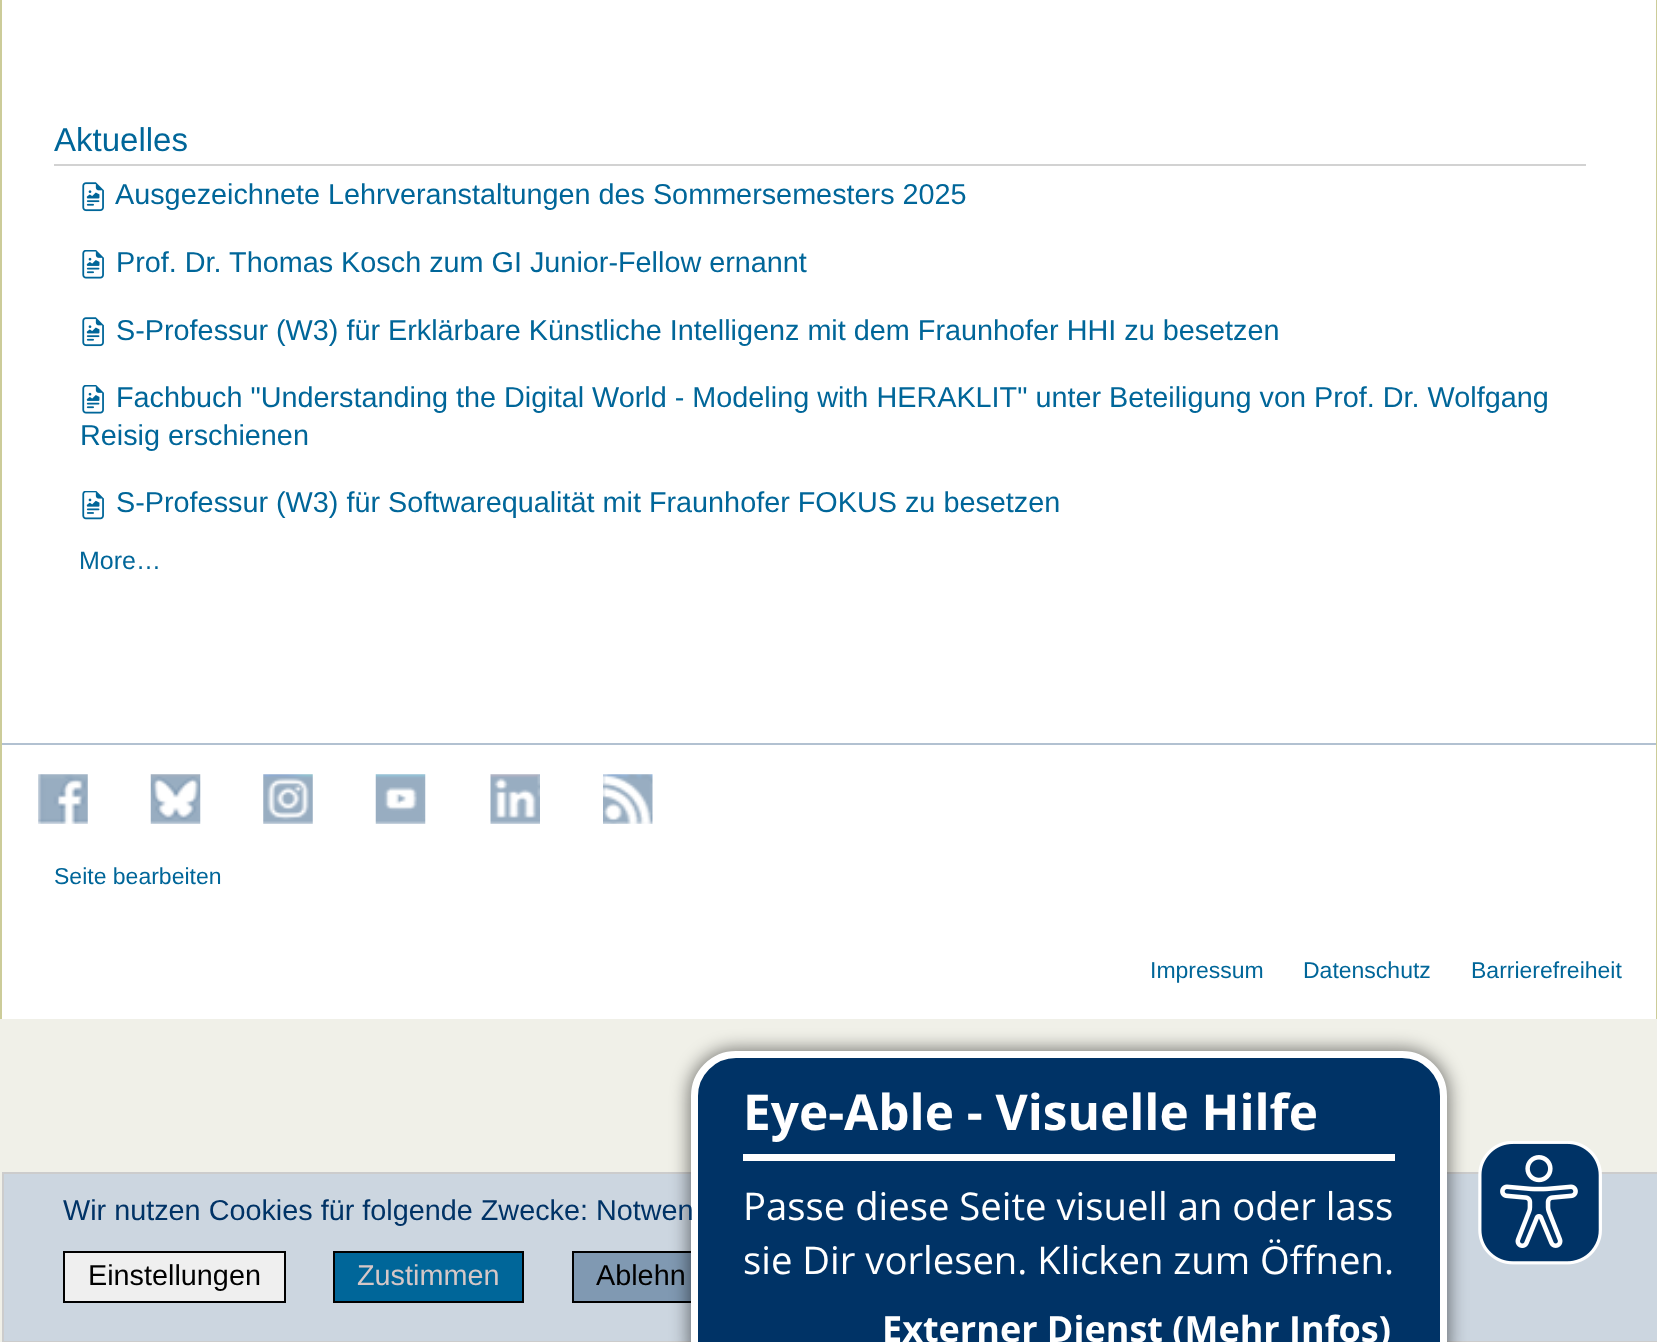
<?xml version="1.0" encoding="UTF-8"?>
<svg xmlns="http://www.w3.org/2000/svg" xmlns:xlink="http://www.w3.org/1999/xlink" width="1657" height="1342">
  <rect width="100%" height="100%" fill="#f0f0e8" />
  <rect x="2" width="1654" height="1019" fill="#ffffff" />
  <rect x="1656" width="1" height="1019" fill="#cccc99" />
  <rect width="2" height="1019" fill="#cccc99" />
  <rect x="54" y="164" width="1532" height="2" fill="#d2d2d2" />
  <image x="82" y="182" width="22" height="30" xlink:href="image1.png" />
  <image x="82" y="250" width="22" height="29" xlink:href="image2.png" />
  <image x="82" y="317" width="22" height="30" xlink:href="image1.png" />
  <image x="82" y="385" width="22" height="29" xlink:href="image2.png" />
  <image x="82" y="491" width="22" height="29" xlink:href="image3.png" />
  <rect x="2" y="743" width="1654" height="2" fill="#b2c1d1" />
  <image x="38" y="774" width="50" height="50" xlink:href="image4.png" />
  <image x="150" y="774" width="51" height="50" xlink:href="image5.png" />
  <image x="263" y="774" width="50" height="50" xlink:href="image6.png" />
  <image x="375" y="774" width="51" height="50" xlink:href="image7.png" />
  <image x="490" y="774" width="50" height="50" xlink:href="image8.png" />
  <image x="603" y="774" width="50" height="50" xlink:href="image9.png" />
  <rect x="3" y="1173" width="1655" height="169" fill="#ccd6e0" stroke="#cccccc" stroke-width="2" />
  <rect x="64" y="1252" width="221" height="50" fill="#efefef" stroke="#000000" stroke-width="2" />
  <rect x="334" y="1252" width="189" height="50" fill="#006699" stroke="#000000" stroke-width="2" />
  <rect x="574" y="1253" width="117" height="48" fill="#8099b2" />
  <rect x="573" y="1252" width="169" height="50" fill="none" stroke="#000000" stroke-width="2" />
  <rect x="689" y="1049" width="760" height="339" rx="47" fill="#000000" fill-opacity="0.5" filter="blur(9px)" />
  <rect x="694.5" y="1054.5" width="749" height="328" rx="41.5" fill="#003366" stroke="#ffffff" stroke-width="7" />
  <rect x="743" y="1154" width="652" height="7" fill="#ffffff" />
  <image x="1478" y="1141" width="124" height="124" xlink:href="image10.png" />
  <text x="54" y="151" style="font-family: Liberation Sans; font-size: 33px; fill: #006699">Aktuelles</text>
  <text x="115" y="204" style="font-family: Liberation Sans; font-size: 28.8px; fill: #006699">Ausgezeichnete Lehrveranstaltungen des Sommersemesters 2025</text>
  <text x="116" y="272" style="font-family: Liberation Sans; font-size: 28.8px; fill: #006699">Prof. Dr. Thomas Kosch zum GI Junior-Fellow ernannt</text>
  <text x="116" y="340" style="font-family: Liberation Sans; font-size: 28.8px; fill: #006699">S-Professur (W3) für Erklärbare Künstliche Intelligenz mit dem Fraunhofer HHI zu besetzen</text>
  <text x="116" y="407" style="font-family: Liberation Sans; font-size: 28.8px; fill: #006699">Fachbuch "Understanding the Digital World - Modeling with HERAKLIT" unter Beteiligung von Prof. Dr. Wolfgang</text>
  <text x="80" y="445" style="font-family: Liberation Sans; font-size: 28.8px; fill: #006699">Reisig erschienen</text>
  <text x="116" y="512" style="font-family: Liberation Sans; font-size: 28.8px; fill: #006699">S-Professur (W3) für Softwarequalität mit Fraunhofer FOKUS zu besetzen</text>
  <text x="79" y="569" style="font-family: Liberation Sans; font-size: 25px; fill: #006699">More…</text>
  <text x="54" y="884" style="font-family: Liberation Sans; font-size: 23px; fill: #006699">Seite bearbeiten</text>
  <text x="1150" y="978" style="font-family: Liberation Sans; font-size: 23px; fill: #006699">Impressum</text>
  <text x="1303" y="978" style="font-family: Liberation Sans; font-size: 23px; fill: #006699">Datenschutz</text>
  <text x="1471" y="978" style="font-family: Liberation Sans; font-size: 23px; fill: #006699">Barrierefreiheit</text>
  <text x="63" y="1220" style="font-family: Liberation Sans; font-size: 28.8px; fill: #003366">Wir nutzen Cookies für folgende Zwecke: Notwen</text>
  <text x="88" y="1285" style="font-family: Liberation Sans; font-size: 28.8px; fill: #000000">Einstellungen</text>
  <text x="357" y="1285" style="font-family: Liberation Sans; font-size: 28.8px; fill: #d5c7c7">Zustimmen</text>
  <text x="596" y="1285" style="font-family: Liberation Sans; font-size: 28.8px; fill: #000000">Ablehn</text>
  <text x="743" y="1130" style="font-family: Open Sans; font-size: 49.5px; font-weight: bold; fill: #ffffff">Eye-Able - Visuelle Hilfe</text>
  <text x="743" y="1220" style="font-family: Open Sans; font-size: 38.25px; fill: #ffffff">Passe diese Seite visuell an oder lass</text>
  <text x="743" y="1274" style="font-family: Open Sans; font-size: 38.25px; fill: #ffffff">sie Dir vorlesen. Klicken zum Öffnen.</text>
  <text x="882" y="1342" style="font-family: Open Sans; font-size: 36px; font-weight: bold; fill: #ffffff">Externer Dienst (Mehr Infos)</text>
</svg>
